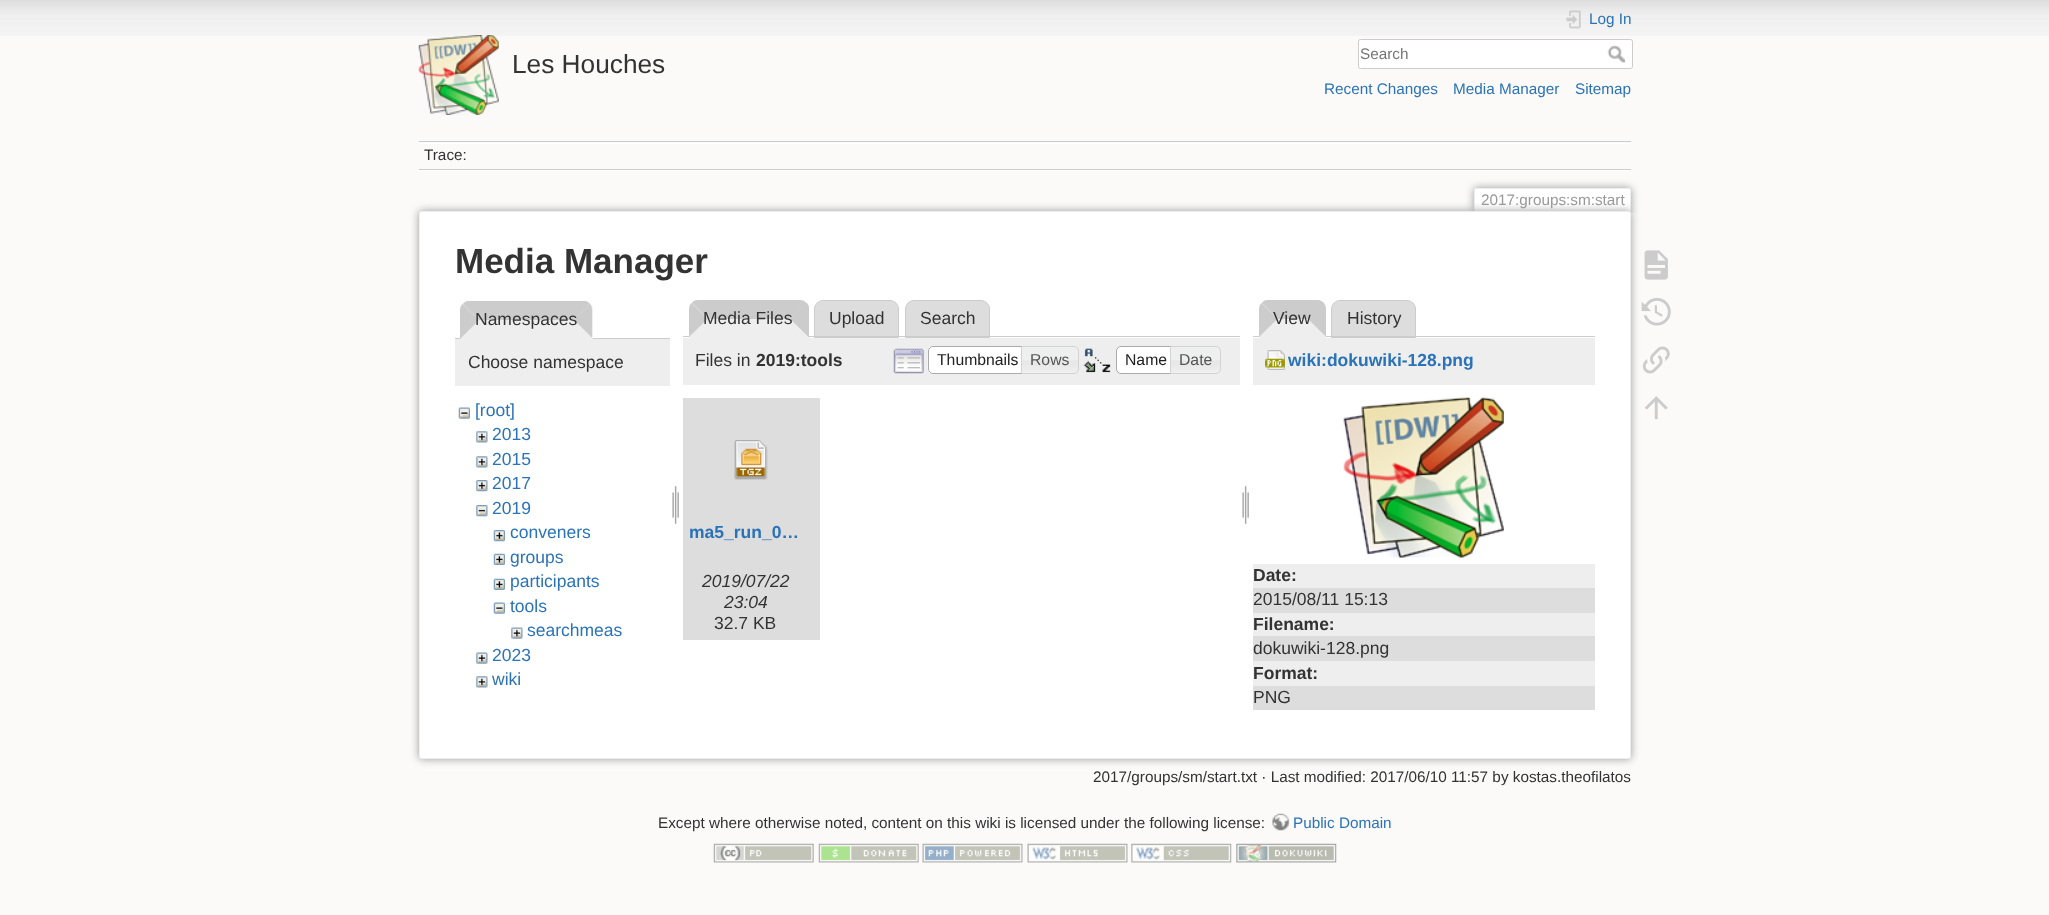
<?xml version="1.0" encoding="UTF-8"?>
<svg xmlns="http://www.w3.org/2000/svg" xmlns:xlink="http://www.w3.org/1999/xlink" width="2049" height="915">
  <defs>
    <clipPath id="clip1"><rect x="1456" y="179" width="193" height="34" /></clipPath>
  </defs>
  <rect width="100%" height="100%" fill="#fbfaf9" />
  <image x="0" y="0" width="2049" height="36" xlink:href="image1.png" />
  <image x="418" y="35" width="81" height="80" xlink:href="image2.png" />
  <image x="1566" y="10" width="15" height="19" xlink:href="image3.png" />
  <rect x="1358.5" y="39.5" width="274" height="29" rx="2" fill="#ffffff" stroke="#cccccc" />
  <image x="1607" y="45" width="18" height="18" xlink:href="image4.png" />
  <rect x="419" y="141" width="1212" height="1" fill="#cccccc" />
  <rect x="419" y="170" width="1212" height="1" fill="#ffffff" />
  <rect x="419" y="143" width="1212" height="1" fill="#ffffff" />
  <rect x="419" y="169" width="1212" height="1" fill="#cccccc" />
  <g clip-path="url(#clip1)">
    <rect x="1474" y="188" width="157" height="25" rx="2.5" fill="#999999" filter="blur(4px)" />
  </g>
  <path d="M 1476 189 h 153 c 0.5 0 1 0.5 1 1 v 23 h -155 v -23 c 0 -0.5 0.5 -1 1 -1 z" fill="#ffffff" />
  <rect x="1475" y="188" width="155" height="1" fill="#eeeeee" />
  <rect x="1630" y="189" width="1" height="24" fill="#eeeeee" />
  <rect x="1474" y="189" width="1" height="24" fill="#eeeeee" />
  <rect x="419" y="211" width="1212" height="548" rx="2.5" fill="#999999" filter="blur(4.5px)" />
  <rect x="419.5" y="211.5" width="1211" height="547" rx="2" fill="#ffffff" stroke="#eeeeee" />
  <rect x="455" y="338" width="215" height="1" fill="#cccccc" />
  <path d="M 469 301 h 115 c 5 0 9 4 9 9 v 29 h -133 v -29 c 0 -5 4 -9 9 -9 z" fill="#eeeeee" />
  <path d="M 586 301 h -119 c -2 1 -3 2 -4 3 l 16 16 h 95 l 16 -16 c -1 -1 -2 -2 -4 -3 z" fill="#cccccc" />
  <path d="M 590 304 l -16 16 l 18 18 v -28 c 0 -2.5 -0.5 -4.5 -2 -6 z" fill="#cccccc" />
  <path d="M 592 338 l -18 -18 h -95 l -19 19 h 132 z" fill="#eeeeee" />
  <path d="M 460 339 l 19 -19 l -16.5 -16 c -1.5 1.5 -2.5 3.5 -2.5 6 z" fill="#cccccc" />
  <rect x="455" y="339" width="215" height="47" fill="#eeeeee" />
  <image x="458" y="407" width="12" height="12" xlink:href="image5.png" />
  <image x="476" y="431" width="12" height="12" xlink:href="image6.png" />
  <image x="476" y="456" width="12" height="12" xlink:href="image6.png" />
  <image x="476" y="480" width="12" height="12" xlink:href="image7.png" />
  <image x="476" y="505" width="12" height="12" xlink:href="image8.png" />
  <image x="493" y="530" width="12" height="12" xlink:href="image9.png" />
  <image x="493" y="553" width="12" height="12" xlink:href="image10.png" />
  <image x="493" y="578" width="12" height="12" xlink:href="image10.png" />
  <image x="493" y="602" width="12" height="12" xlink:href="image5.png" />
  <image x="511" y="627" width="12" height="12" xlink:href="image11.png" />
  <image x="476" y="652" width="12" height="12" xlink:href="image11.png" />
  <image x="476" y="676" width="12" height="12" xlink:href="image6.png" />
  <image x="672" y="485" width="7" height="39" xlink:href="image12.png" />
  <path d="M 823 300.5 h 67 c 4.5 0 8.5 4 8.5 8.5 v 28.5 h -84 v -28.5 c 0 -4.5 4 -8.5 8.5 -8.5 z" fill="#dddddd" stroke="#cccccc" />
  <path d="M 914 300.5 h 67 c 4.5 0 8.5 4 8.5 8.5 v 28.5 h -84 v -28.5 c 0 -4.5 4 -8.5 8.5 -8.5 z" fill="#dddddd" stroke="#cccccc" />
  <rect x="683" y="336" width="557" height="1" fill="#cccccc" />
  <path d="M 698 300 h 102 c 5 0 9 4 9 9 v 29 h -120 v -29 c 0 -5 4 -9 9 -9 z" fill="#eeeeee" />
  <path d="M 698 300 h 102 c 2 0 5 1 6 3 l -16 16 h -82 l -16 -16 c 1 -2 3 -3 6 -3 z" fill="#cccccc" />
  <path d="M 806 302.5 l -16 16.5 l 19 18.5 v -30.5 c -0.5 -2 -1.5 -3.5 -3 -4.5 z" fill="#cccccc" />
  <path d="M 809 338 l -19 -19 h -82 l -19 19 z" fill="#eeeeee" />
  <path d="M 691.5 303 c -1.5 1.5 -2.5 3.5 -2.5 6 v 28 l 18.5 -18 z" fill="#cccccc" />
  <rect x="683" y="338" width="557" height="47" fill="#eeeeee" />
  <image x="893" y="348" width="31" height="26" xlink:href="image13.png" />
  <path d="M 933 346 h 95 v 28 h -95 c -3 0 -5 -2 -5 -5 v -18 c 0 -3 2 -5 5 -5 z" fill="#ffffff" />
  <image x="927" y="347" width="3" height="26" xlink:href="image14.png" />
  <path d="M 933 346.5 h 94.5 v 27 h -94.5 c -2.5 0 -4.5 -2 -4.5 -4.5 v -18 c 0 -2.5 2 -4.5 4.5 -4.5 z" fill="none" stroke="#aaaaaa" />
  <image x="1022" y="346" width="57" height="28" xlink:href="image15.png" />
  <path d="M 1021.5 346.5 h 52.5 c 2.5 0 4.5 2 4.5 4.5 v 18 c 0 2.5 -2 4.5 -4.5 4.5 h -52.5 z" fill="none" stroke="#d3d3d3" />
  <image x="1083" y="348" width="28" height="25" xlink:href="image16.png" />
  <path d="M 1121 346.5 h 54.5 v 27 h -54.5 c -2.5 0 -4.5 -2 -4.5 -4.5 v -18 c 0 -2.5 2 -4.5 4.5 -4.5 z" fill="#ffffff" stroke="#aaaaaa" />
  <image x="1171" y="346" width="50" height="28" xlink:href="image17.png" />
  <path d="M 1170.5 346.5 h 45.5 c 2.5 0 4.5 2 4.5 4.5 v 18 c 0 2.5 -2 4.5 -4.5 4.5 h -45.5 z" fill="none" stroke="#d3d3d3" />
  <image x="1242" y="485" width="7" height="39" xlink:href="image12.png" />
  <rect x="683" y="398" width="137" height="242" fill="#dddddd" />
  <image x="734" y="440" width="34" height="40" xlink:href="image18.png" />
  <path d="M 1340 300.5 h 67 c 4.5 0 8.5 4 8.5 8.5 v 28.5 h -84 v -28.5 c 0 -4.5 4 -8.5 8.5 -8.5 z" fill="#dddddd" stroke="#cccccc" />
  <rect x="1253" y="336" width="342" height="1" fill="#cccccc" />
  <path d="M 1268 300 h 49 c 5 0 9 4 9 9 v 29 h -67 v -29 c 0 -5 4 -9 9 -9 z" fill="#eeeeee" />
  <path d="M 1268 300 h 50 c 2 0 4 1 6 3 l -16 16 h -30 l -16 -16 c 1 -2 3 -3 6 -3 z" fill="#cccccc" />
  <path d="M 1323.5 302.5 l -16 16.5 l 18.5 18 v -28 c 0 -2.5 -1 -4.5 -2.5 -6.5 z" fill="#cccccc" />
  <path d="M 1326 337 l -18 -18 h -30 l -19 19 z" fill="#eeeeee" />
  <path d="M 1261.5 303 c -1.5 1.5 -2.5 3.5 -2.5 6 v 28 l 18.5 -18 z" fill="#cccccc" />
  <rect x="1253" y="338" width="342" height="47" fill="#eeeeee" />
  <image x="1265" y="350" width="20" height="20" xlink:href="image19.png" />
  <image x="1343" y="397" width="161" height="161" xlink:href="image20.png" />
  <rect x="1253" y="564" width="342" height="24" fill="#eeeeee" />
  <rect x="1253" y="588" width="342" height="25" fill="#dddddd" />
  <rect x="1253" y="613" width="342" height="23" fill="#eeeeee" />
  <rect x="1253" y="636" width="342" height="25" fill="#dddddd" />
  <rect x="1253" y="661" width="342" height="25" fill="#eeeeee" />
  <rect x="1253" y="686" width="342" height="24" fill="#dddddd" />
  <image x="1644" y="250" width="24" height="30" xlink:href="image21.png" />
  <image x="1641" y="298" width="30" height="28" xlink:href="image22.png" />
  <image x="1642" y="346" width="28" height="28" xlink:href="image23.png" />
  <image x="1644" y="396" width="24" height="24" xlink:href="image24.png" />
  <image x="1272" y="813" width="18" height="18" xlink:href="image25.png" />
  <image x="713" y="843" width="101" height="20" xlink:href="image26.png" />
  <image x="818" y="843" width="101" height="20" xlink:href="image27.png" />
  <image x="922" y="843" width="101" height="20" xlink:href="image28.png" />
  <image x="1027" y="843" width="101" height="20" xlink:href="image29.png" />
  <image x="1131" y="843" width="101" height="20" xlink:href="image30.png" />
  <image x="1236" y="843" width="101" height="20" xlink:href="image31.png" />
  <text x="512" y="73" style="font-family: Liberation Sans; font-size: 26.25px; fill: #333333">Les Houches</text>
  <text x="1589" y="24" style="font-family: Liberation Sans; font-size: 15.3px; fill: #2b73b7">Log In</text>
  <text x="1360" y="59" style="font-family: Liberation Sans; font-size: 15.3px; fill: #757575">Search</text>
  <text x="1324" y="94" style="font-family: Liberation Sans; font-size: 15.3px; fill: #2b73b7">Recent Changes</text>
  <text x="1453" y="94" style="font-family: Liberation Sans; font-size: 15.3px; fill: #2b73b7">Media Manager</text>
  <text x="1575" y="94" style="font-family: Liberation Sans; font-size: 15.3px; fill: #2b73b7">Sitemap</text>
  <text x="424" y="160" style="font-family: Liberation Sans; font-size: 15.3px; fill: #333333">Trace:</text>
  <text x="1481" y="205" style="font-family: Liberation Sans; font-size: 15.3px; fill: #999999">2017:groups:sm:start</text>
  <text x="455" y="273" style="font-family: Liberation Sans; font-size: 35px; font-weight: bold; fill: #333333">Media Manager</text>
  <text x="475" y="325" style="font-family: Liberation Sans; font-size: 17.5px; fill: #333333">Namespaces</text>
  <text x="468" y="368" style="font-family: Liberation Sans; font-size: 17.5px; fill: #333333">Choose namespace</text>
  <text x="475" y="416" style="font-family: Liberation Sans; font-size: 17.5px; fill: #2b73b7">[root]</text>
  <text x="492" y="440" style="font-family: Liberation Sans; font-size: 17.5px; fill: #2b73b7">2013</text>
  <text x="492" y="465" style="font-family: Liberation Sans; font-size: 17.5px; fill: #2b73b7">2015</text>
  <text x="492" y="489" style="font-family: Liberation Sans; font-size: 17.5px; fill: #2b73b7">2017</text>
  <text x="492" y="514" style="font-family: Liberation Sans; font-size: 17.5px; fill: #2b73b7">2019</text>
  <text x="510" y="538" style="font-family: Liberation Sans; font-size: 17.5px; fill: #2b73b7">conveners</text>
  <text x="510" y="563" style="font-family: Liberation Sans; font-size: 17.5px; fill: #2b73b7">groups</text>
  <text x="510" y="587" style="font-family: Liberation Sans; font-size: 17.5px; fill: #2b73b7">participants</text>
  <text x="510" y="612" style="font-family: Liberation Sans; font-size: 17.5px; fill: #2b73b7">tools</text>
  <text x="527" y="636" style="font-family: Liberation Sans; font-size: 17.5px; fill: #2b73b7">searchmeas</text>
  <text x="492" y="661" style="font-family: Liberation Sans; font-size: 17.5px; fill: #2b73b7">2023</text>
  <text x="492" y="685" style="font-family: Liberation Sans; font-size: 17.5px; fill: #2b73b7">wiki</text>
  <text x="703" y="324" style="font-family: Liberation Sans; font-size: 17.5px; fill: #333333">Media Files</text>
  <text x="829" y="324" style="font-family: Liberation Sans; font-size: 17.5px; fill: #333333">Upload</text>
  <text x="920" y="324" style="font-family: Liberation Sans; font-size: 17.5px; fill: #333333">Search</text>
  <text x="695" y="366" style="font-family: Liberation Sans; font-size: 17.5px; fill: #333333">Files in</text>
  <text x="756" y="366" style="font-family: Liberation Sans; font-size: 17.5px; font-weight: bold; fill: #333333">2019:tools</text>
  <text x="937" y="365" style="font-family: Liberation Sans; font-size: 15.75px; fill: #212121">Thumbnails</text>
  <text x="1030" y="365" style="font-family: Liberation Sans; font-size: 15.75px; fill: #555555">Rows</text>
  <text x="1125" y="365" style="font-family: Liberation Sans; font-size: 15.75px; fill: #212121">Name</text>
  <text x="1179" y="365" style="font-family: Liberation Sans; font-size: 15.75px; fill: #555555">Date</text>
  <text x="689" y="538" style="font-family: Liberation Sans; font-size: 17.5px; font-weight: bold; fill: #2b73b7">ma5_run_0…</text>
  <text x="702" y="587" style="font-family: Liberation Sans; font-size: 17.5px; font-style: italic; fill: #333333">2019/07/22</text>
  <text x="724" y="608" style="font-family: Liberation Sans; font-size: 17.5px; font-style: italic; fill: #333333">23:04</text>
  <text x="714" y="629" style="font-family: Liberation Sans; font-size: 17.5px; fill: #333333">32.7 KB</text>
  <text x="1273" y="324" style="font-family: Liberation Sans; font-size: 17.5px; fill: #333333">View</text>
  <text x="1347" y="324" style="font-family: Liberation Sans; font-size: 17.5px; fill: #333333">History</text>
  <text x="1288" y="366" style="font-family: Liberation Sans; font-size: 17.5px; font-weight: bold; fill: #2b73b7">wiki:dokuwiki-128.png</text>
  <text x="1253" y="581" style="font-family: Liberation Sans; font-size: 17.5px; font-weight: bold; fill: #333333">Date:</text>
  <text x="1253" y="605" style="font-family: Liberation Sans; font-size: 17.5px; fill: #333333">2015/08/11 15:13</text>
  <text x="1253" y="630" style="font-family: Liberation Sans; font-size: 17.5px; font-weight: bold; fill: #333333">Filename:</text>
  <text x="1253" y="654" style="font-family: Liberation Sans; font-size: 17.5px; fill: #333333">dokuwiki-128.png</text>
  <text x="1253" y="679" style="font-family: Liberation Sans; font-size: 17.5px; font-weight: bold; fill: #333333">Format:</text>
  <text x="1253" y="703" style="font-family: Liberation Sans; font-size: 17.5px; fill: #333333">PNG</text>
  <text x="1093" y="782" style="font-family: Liberation Sans; font-size: 15.3px; fill: #333333">2017/groups/sm/start.txt · Last modified: 2017/06/10 11:57 by kostas.theofilatos</text>
  <text x="658" y="828" style="font-family: Liberation Sans; font-size: 15.3px; fill: #333333">Except where otherwise noted, content on this wiki is licensed under the following license:</text>
  <text x="1293" y="828" style="font-family: Liberation Sans; font-size: 15.3px; fill: #2b73b7">Public Domain</text>
</svg>
